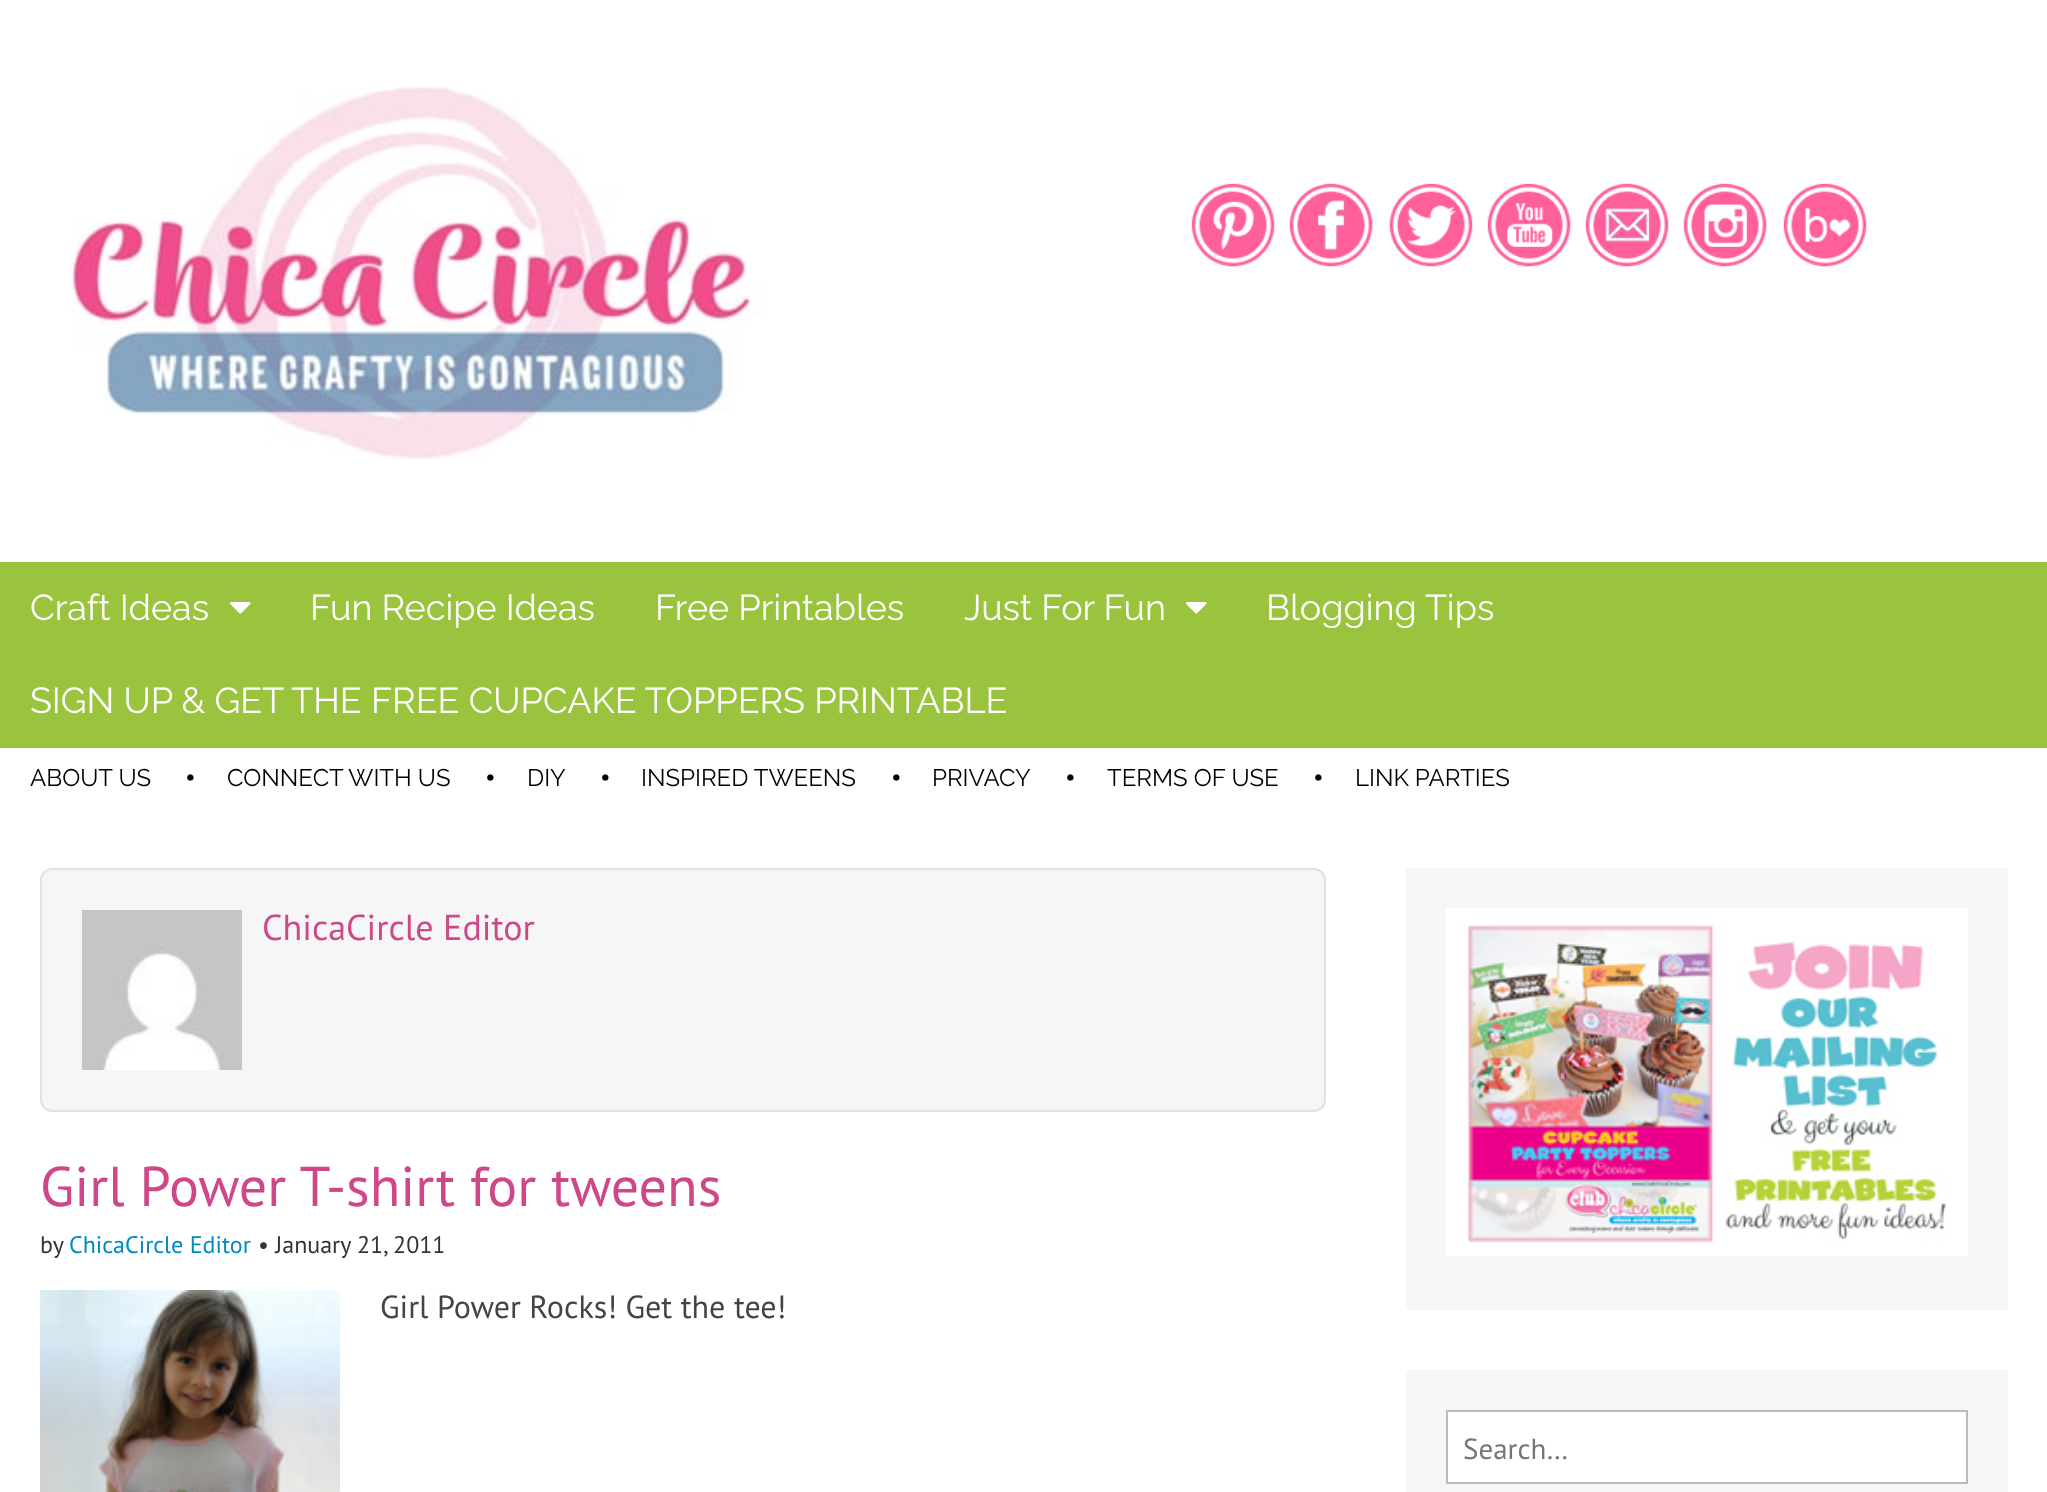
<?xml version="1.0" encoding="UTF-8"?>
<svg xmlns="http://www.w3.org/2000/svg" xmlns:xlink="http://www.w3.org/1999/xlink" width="2047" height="1492">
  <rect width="100%" height="100%" fill="#ffffff" />
  <image x="70" y="86" width="698" height="374" xlink:href="image1.png" />
  <image x="1191" y="183" width="84" height="84" xlink:href="image2.png" />
  <image x="1289" y="183" width="84" height="84" xlink:href="image3.png" />
  <image x="1389" y="183" width="84" height="84" xlink:href="image4.png" />
  <image x="1487" y="183" width="84" height="84" xlink:href="image5.png" />
  <image x="1585" y="183" width="84" height="84" xlink:href="image6.png" />
  <image x="1683" y="183" width="84" height="84" xlink:href="image7.png" />
  <image x="1783" y="183" width="84" height="84" xlink:href="image8.png" />
  <rect y="562" width="2047" height="186" fill="#9ac43e" />
  <image x="230" y="602" width="21" height="12" xlink:href="image9.png" />
  <image x="1186" y="602" width="21" height="12" xlink:href="image9.png" />
  <rect x="41" y="869" width="1284" height="242" rx="11" fill="#f6f6f6" stroke="#e2e2e2" stroke-width="2" />
  <image x="82" y="910" width="160" height="160" xlink:href="image10.png" />
  <image x="40" y="1290" width="300" height="202" xlink:href="image11.png" />
  <rect x="1406" y="868" width="602" height="442" fill="#f6f6f6" />
  <image x="1446" y="908" width="522" height="348" xlink:href="image12.png" />
  <rect x="1406" y="1370" width="602" height="122" fill="#f6f6f6" />
  <rect x="1447" y="1411" width="520" height="72" fill="#ffffff" stroke="#bbbbbb" stroke-width="2" />
  <text x="30" y="620" style="font-family: Raleway; font-size: 36px; fill: #ffffff">Craft Ideas</text>
  <text x="310" y="620" style="font-family: Raleway; font-size: 36px; fill: #ffffff">Fun Recipe Ideas</text>
  <text x="655" y="620" style="font-family: Raleway; font-size: 36px; fill: #ffffff">Free Printables</text>
  <text x="964" y="620" style="font-family: Raleway; font-size: 36px; fill: #ffffff">Just For Fun</text>
  <text x="1266" y="620" style="font-family: Raleway; font-size: 36px; fill: #ffffff">Blogging Tips</text>
  <text x="30" y="713" style="font-family: Raleway; font-size: 36px; fill: #ffffff">SIGN UP &amp; GET THE FREE CUPCAKE TOPPERS PRINTABLE</text>
  <text x="30" y="786" style="font-family: Raleway; font-size: 24px; fill: #000000">ABOUT US</text>
  <text x="184" y="790" style="font-family: Raleway; font-size: 36px; fill: #000000">•</text>
  <text x="227" y="786" style="font-family: Raleway; font-size: 24px; fill: #000000">CONNECT WITH US</text>
  <text x="484" y="790" style="font-family: Raleway; font-size: 36px; fill: #000000">•</text>
  <text x="527" y="786" style="font-family: Raleway; font-size: 24px; fill: #000000">DIY</text>
  <text x="599" y="790" style="font-family: Raleway; font-size: 36px; fill: #000000">•</text>
  <text x="641" y="786" style="font-family: Raleway; font-size: 24px; fill: #000000">INSPIRED TWEENS</text>
  <text x="890" y="790" style="font-family: Raleway; font-size: 36px; fill: #000000">•</text>
  <text x="932" y="786" style="font-family: Raleway; font-size: 24px; fill: #000000">PRIVACY</text>
  <text x="1064" y="790" style="font-family: Raleway; font-size: 36px; fill: #000000">•</text>
  <text x="1107" y="786" style="font-family: Raleway; font-size: 24px; fill: #000000">TERMS OF USE</text>
  <text x="1312" y="790" style="font-family: Raleway; font-size: 36px; fill: #000000">•</text>
  <text x="1355" y="786" style="font-family: Raleway; font-size: 24px; fill: #000000">LINK PARTIES</text>
  <text x="262" y="940" style="font-family: PT Sans; font-size: 36px; fill: #ce4889">ChicaCircle Editor</text>
  <text x="40" y="1206" style="font-family: PT Sans; font-size: 56px; fill: #ce4889">Girl Power T-shirt for tweens</text>
  <text x="40" y="1253" style="font-family: PT Sans; font-size: 24px; fill: #333333">by</text>
  <text x="69" y="1253" style="font-family: PT Sans; font-size: 24px; fill: #0089c4">ChicaCircle Editor</text>
  <text x="258" y="1253" style="font-family: PT Sans; font-size: 24px; fill: #333333">• January 21, 2011</text>
  <text x="380" y="1318" style="font-family: PT Sans; font-size: 32px; fill: #444444">Girl Power Rocks! Get the tee!</text>
  <text x="1463" y="1459" style="font-family: PT Sans; font-size: 29px; fill: #757575">Search…</text>
</svg>
